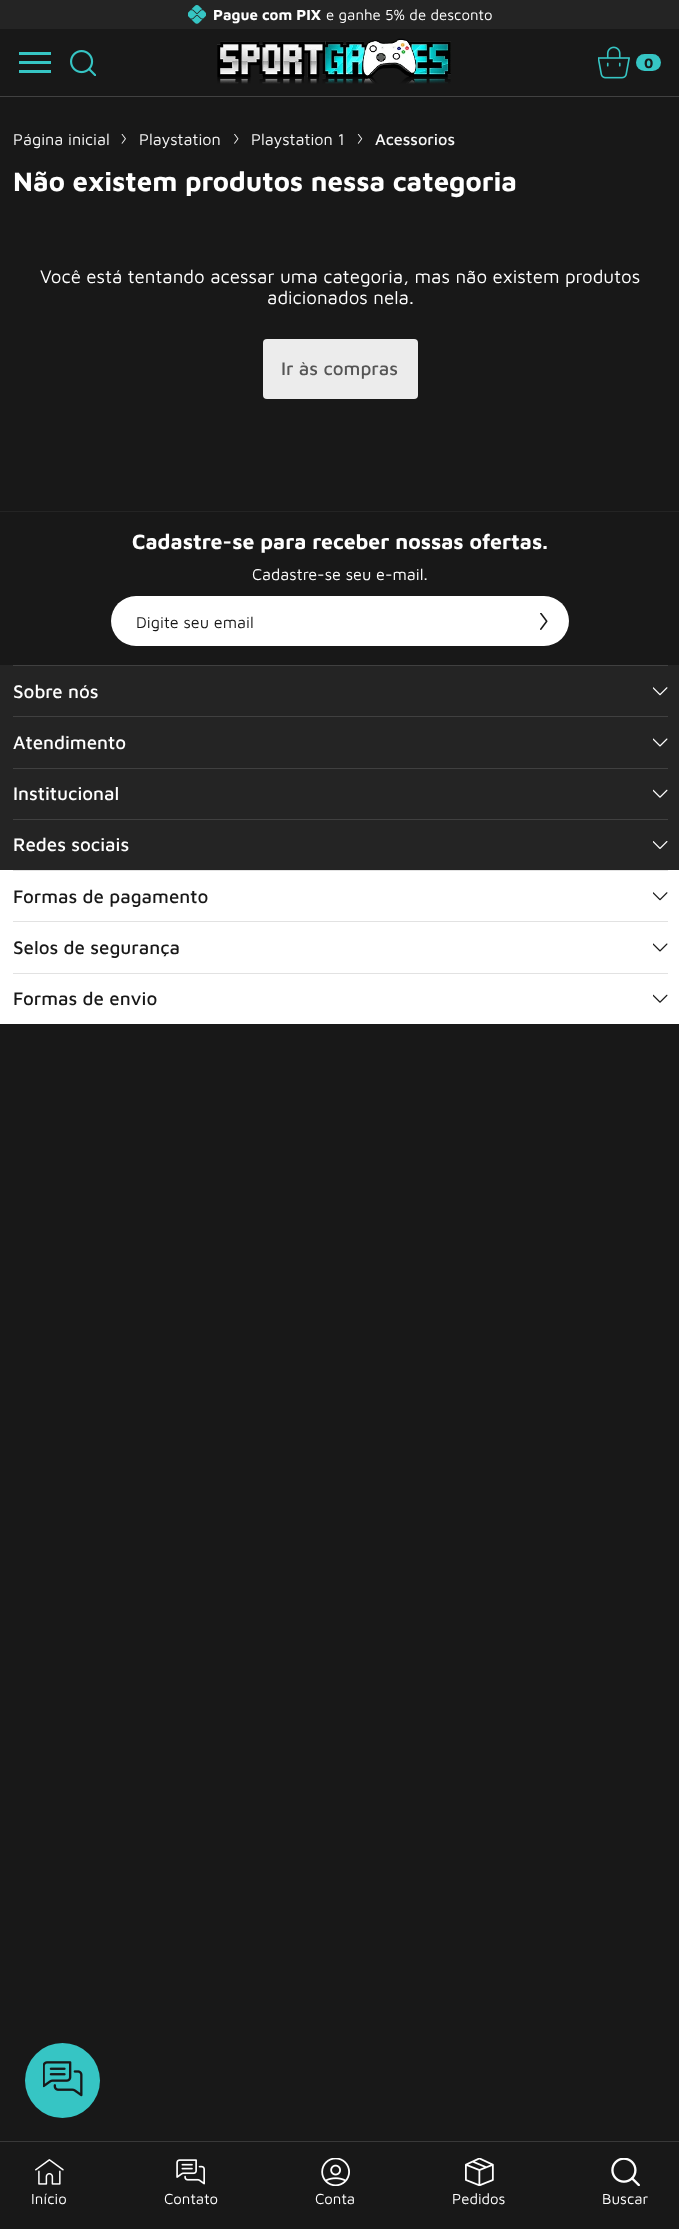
<?xml version="1.0" encoding="UTF-8"?>
<svg xmlns="http://www.w3.org/2000/svg" xmlns:xlink="http://www.w3.org/1999/xlink" width="679" height="2229">
  <rect width="100%" height="100%" fill="#181818" />
  <rect width="679" height="29" fill="#242424" />
  <image x="188" y="5" width="18" height="19" xlink:href="image1.png" />
  <rect y="96" width="679" height="1" fill="#414141" />
  <rect x="19" y="70" width="32" height="3" fill="#36c5c4" />
  <rect x="19" y="61" width="32" height="3" fill="#36c5c4" />
  <rect x="19" y="52" width="32" height="3" fill="#36c5c4" />
  <image x="70" y="50" width="26" height="26" xlink:href="image2.png" />
  <image x="217" y="38" width="234" height="46" xlink:href="image3.png" />
  <image x="598" y="46" width="32" height="33" xlink:href="image4.png" />
  <rect x="636" y="54" width="25" height="17" rx="8.5" fill="#36c5c4" />
  <image x="121" y="134" width="5" height="10" xlink:href="image5.png" />
  <image x="234" y="134" width="5" height="10" xlink:href="image6.png" />
  <image x="357" y="134" width="6" height="10" xlink:href="image7.png" />
  <rect x="263" y="339" width="155" height="60" rx="4" fill="#ececec" />
  <rect y="511" width="679" height="1" fill="#242424" />
  <rect x="111" y="596" width="458" height="50" rx="25" fill="#ffffff" />
  <image x="540" y="613" width="8" height="17" xlink:href="image8.png" />
  <rect y="665" width="679" height="205" fill="#242424" />
  <rect x="13" y="665" width="655" height="1" fill="#404040" />
  <image x="653" y="687" width="15" height="9" xlink:href="image9.png" />
  <rect x="13" y="716" width="655" height="1" fill="#404040" />
  <image x="653" y="738" width="15" height="9" xlink:href="image10.png" />
  <rect x="13" y="768" width="655" height="1" fill="#404040" />
  <image x="653" y="789" width="15" height="9" xlink:href="image11.png" />
  <rect x="13" y="819" width="655" height="1" fill="#404040" />
  <image x="653" y="841" width="15" height="8" xlink:href="image12.png" />
  <rect y="870" width="679" height="154" fill="#ffffff" />
  <rect x="13" y="870" width="655" height="1" fill="#e2e2e2" />
  <image x="653" y="892" width="15" height="9" xlink:href="image13.png" />
  <rect x="13" y="921" width="655" height="1" fill="#e2e2e2" />
  <image x="653" y="943" width="15" height="9" xlink:href="image14.png" />
  <rect x="13" y="973" width="655" height="1" fill="#e2e2e2" />
  <image x="653" y="994" width="15" height="9" xlink:href="image15.png" />
  <circle cx="62.5" cy="2080.5" r="37.5" fill="#36c5c4" />
  <image x="43" y="2061" width="40" height="36" xlink:href="image16.png" />
  <rect y="2141" width="679" height="1" fill="#383838" />
  <image x="35" y="2159" width="29" height="26" xlink:href="image17.png" />
  <image x="176" y="2159" width="29" height="26" xlink:href="image18.png" />
  <image x="321" y="2158" width="29" height="28" xlink:href="image19.png" />
  <image x="465" y="2158" width="29" height="28" xlink:href="image20.png" />
  <image x="611" y="2158" width="29" height="28" xlink:href="image21.png" />
  <text x="213" y="20" style="font-family: Maven Pro; font-size: 15px; font-weight: bold; fill: #ffffff">Pague com PIX</text>
  <text x="326" y="20" style="font-family: Maven Pro; font-size: 15px; fill: #ffffff">e ganhe 5% de desconto</text>
  <text x="644" y="68" style="font-family: Maven Pro; font-size: 14px; font-weight: bold; fill: #181818">0</text>
  <text x="13" y="145" style="font-family: Maven Pro; font-size: 16.25px; fill: #f7f7f7">Página inicial</text>
  <text x="139" y="145" style="font-family: Maven Pro; font-size: 16.25px; fill: #f7f7f7">Playstation</text>
  <text x="251" y="145" style="font-family: Maven Pro; font-size: 16.25px; fill: #f7f7f7">Playstation 1</text>
  <text x="375" y="145" style="font-family: Maven Pro; font-size: 16.25px; font-weight: 500; fill: #f7f7f7">Acessorios</text>
  <text x="13" y="191" style="font-family: Maven Pro; font-size: 27.5px; font-weight: bold; fill: #ffffff">Não existem produtos nessa categoria</text>
  <text x="40" y="283" style="font-family: Maven Pro; font-size: 18.75px; fill: #ffffff">Você está tentando acessar uma categoria, mas não existem produtos</text>
  <text x="267" y="304" style="font-family: Maven Pro; font-size: 18.75px; fill: #ffffff">adicionados nela.</text>
  <text x="281" y="375" style="font-family: Maven Pro; font-size: 18.75px; font-weight: 500; fill: #555555">Ir às compras</text>
  <text x="132" y="549" style="font-family: Maven Pro; font-size: 21.25px; font-weight: bold; fill: #ffffff">Cadastre-se para receber nossas ofertas.</text>
  <text x="252" y="580" style="font-family: Maven Pro; font-size: 16.25px; fill: #ffffff">Cadastre-se seu e-mail.</text>
  <text x="136" y="628" style="font-family: Maven Pro; font-size: 16.25px; fill: #181818">Digite seu email</text>
  <text x="13" y="698" style="font-family: Maven Pro; font-size: 18.75px; font-weight: 500; fill: #ffffff">Sobre nós</text>
  <text x="13" y="749" style="font-family: Maven Pro; font-size: 18.75px; font-weight: 500; fill: #ffffff">Atendimento</text>
  <text x="13" y="800" style="font-family: Maven Pro; font-size: 18.75px; font-weight: 500; fill: #ffffff">Institucional</text>
  <text x="13" y="851" style="font-family: Maven Pro; font-size: 18.75px; font-weight: 500; fill: #ffffff">Redes sociais</text>
  <text x="13" y="903" style="font-family: Maven Pro; font-size: 18.75px; font-weight: 500; fill: #181818">Formas de pagamento</text>
  <text x="13" y="954" style="font-family: Maven Pro; font-size: 18.75px; font-weight: 500; fill: #181818">Selos de segurança</text>
  <text x="13" y="1005" style="font-family: Maven Pro; font-size: 18.75px; font-weight: 500; fill: #181818">Formas de envio</text>
  <text x="31" y="2204" style="font-family: Maven Pro; font-size: 15px; fill: #ffffff">Início</text>
  <text x="164" y="2204" style="font-family: Maven Pro; font-size: 15px; fill: #ffffff">Contato</text>
  <text x="315" y="2204" style="font-family: Maven Pro; font-size: 15px; fill: #ffffff">Conta</text>
  <text x="452" y="2204" style="font-family: Maven Pro; font-size: 15px; fill: #ffffff">Pedidos</text>
  <text x="602" y="2204" style="font-family: Maven Pro; font-size: 15px; fill: #ffffff">Buscar</text>
</svg>
